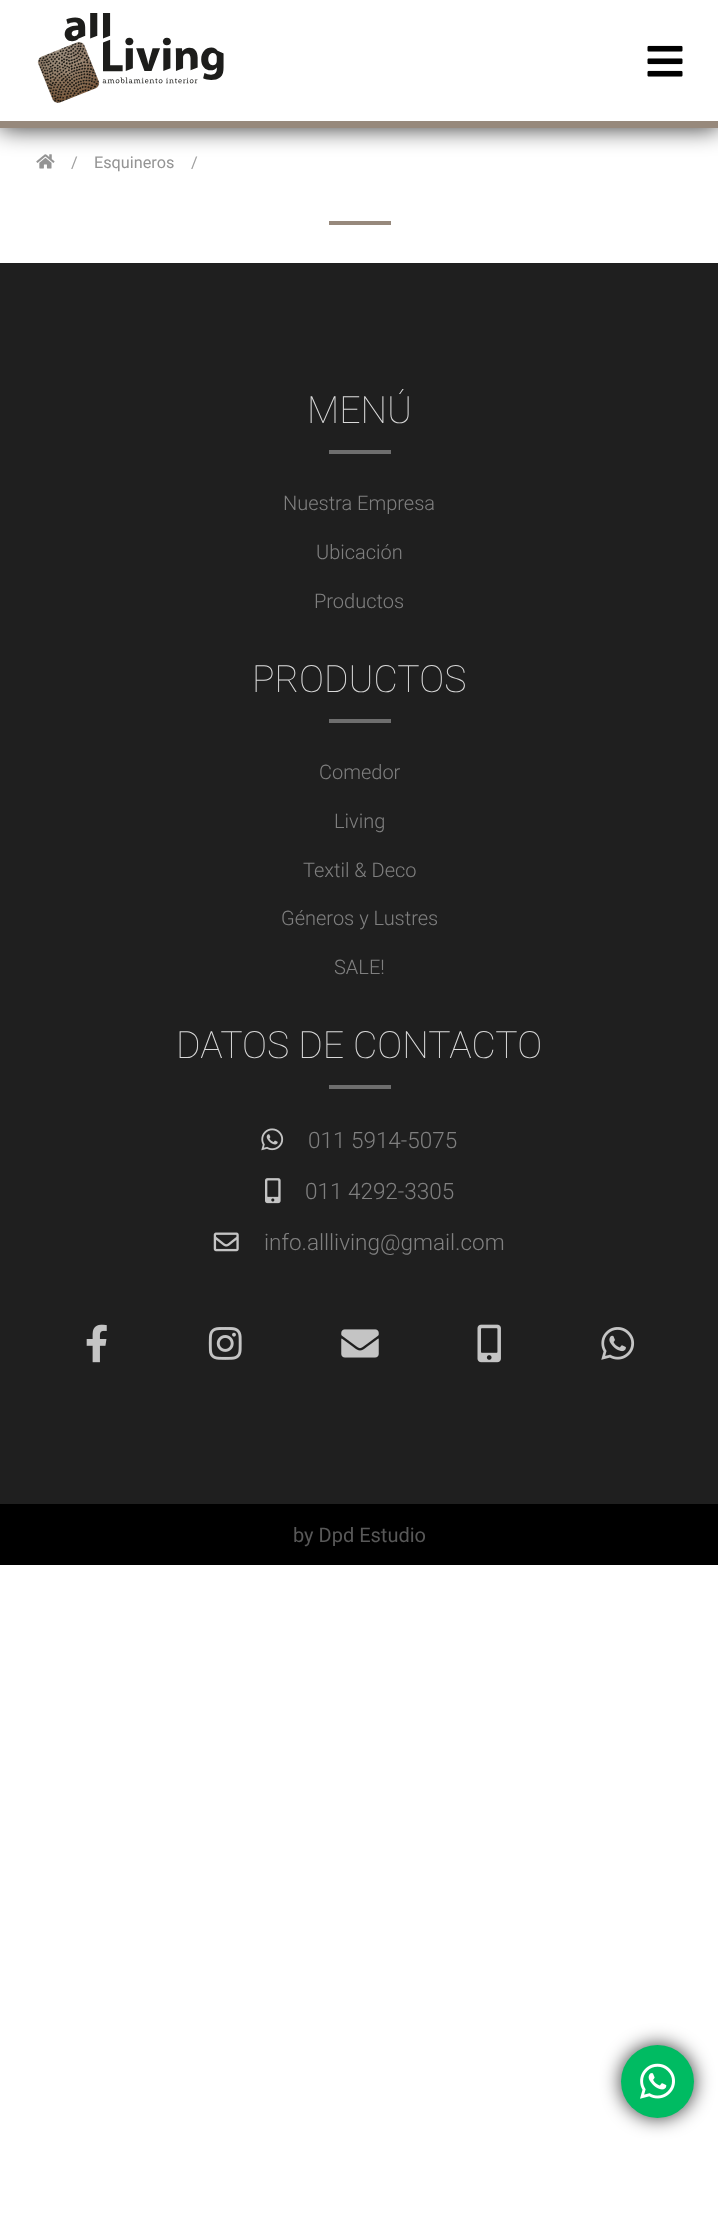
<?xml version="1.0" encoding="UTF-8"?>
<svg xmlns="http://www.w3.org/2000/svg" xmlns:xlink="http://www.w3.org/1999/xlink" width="718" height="2217">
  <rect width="100%" height="100%" fill="#ffffff" />
  <image x="36" y="154" width="19" height="15" xlink:href="image3.png" />
  <rect width="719" height="128" fill="#000000" fill-opacity="0.82" filter="blur(12.5px)" />
  <rect width="718" height="121" fill="#ffffff" />
  <rect y="121" width="718" height="7" fill="#97897c" />
  <image x="37" y="13" width="187" height="90" xlink:href="image1.png" />
  <image x="647" y="45" width="36" height="32" xlink:href="image2.png" />
  <rect x="329" y="221" width="62" height="4" fill="#97897c" />
  <rect y="263" width="718" height="1241" fill="#1f1f1f" />
  <rect x="329" y="450" width="62" height="4" fill="#6e6e6e" />
  <rect x="329" y="719" width="62" height="4" fill="#6e6e6e" />
  <rect x="329" y="1085" width="62" height="4" fill="#6e6e6e" />
  <image x="261" y="1128" width="23" height="23" xlink:href="image4.png" />
  <image x="265" y="1178" width="16" height="26" xlink:href="image5.png" />
  <image x="213" y="1232" width="26" height="20" xlink:href="image6.png" />
  <image x="86" y="1324" width="21" height="39" xlink:href="image7.png" />
  <image x="208" y="1327" width="34" height="33" xlink:href="image8.png" />
  <image x="341" y="1329" width="38" height="29" xlink:href="image9.png" />
  <image x="477" y="1324" width="24" height="39" xlink:href="image10.png" />
  <image x="601" y="1327" width="34" height="33" xlink:href="image11.png" />
  <rect y="1504" width="718" height="61" fill="#000000" />
  <rect x="621" y="2045" width="73" height="73" rx="36.5" fill="#000000" fill-opacity="0.8" filter="blur(9.5px)" />
  <circle cx="657.5" cy="2081.5" r="36.5" fill="#00bb62" />
  <image x="640" y="2063" width="35" height="36" xlink:href="image12.png" />
  <text x="71" y="168" style="font-family: Roboto; font-size: 16.25px; fill: #a0a0a0">/</text>
  <text x="94" y="168" style="font-family: Roboto; font-size: 16.25px; fill: #949494">Esquineros</text>
  <text x="191" y="168" style="font-family: Roboto; font-size: 16.25px; fill: #a0a0a0">/</text>
  <text x="307" y="423" style="font-family: Roboto; font-size: 37.5px; font-weight: 100; fill: #dadada">MENÚ</text>
  <text x="283" y="510" style="font-family: Roboto; font-size: 20px; font-weight: 300; fill: #808080">Nuestra Empresa</text>
  <text x="316" y="559" style="font-family: Roboto; font-size: 20px; font-weight: 300; fill: #808080">Ubicación</text>
  <text x="314" y="608" style="font-family: Roboto; font-size: 20px; font-weight: 300; fill: #808080">Productos</text>
  <text x="252" y="692" style="font-family: Roboto; font-size: 37.5px; font-weight: 100; fill: #dadada">PRODUCTOS</text>
  <text x="319" y="779" style="font-family: Roboto; font-size: 20px; font-weight: 300; fill: #808080">Comedor</text>
  <text x="334" y="828" style="font-family: Roboto; font-size: 20px; font-weight: 300; fill: #808080">Living</text>
  <text x="303" y="877" style="font-family: Roboto; font-size: 20px; font-weight: 300; fill: #808080">Textil &amp; Deco</text>
  <text x="281" y="925" style="font-family: Roboto; font-size: 20px; font-weight: 300; fill: #808080">Géneros y Lustres</text>
  <text x="334" y="974" style="font-family: Roboto; font-size: 20px; font-weight: 300; fill: #808080">SALE!</text>
  <text x="176" y="1058" style="font-family: Roboto; font-size: 37.5px; font-weight: 100; fill: #dadada">DATOS DE CONTACTO</text>
  <text x="308" y="1148" style="font-family: Roboto; font-size: 22.5px; font-weight: 300; fill: #808080">011 5914-5075</text>
  <text x="305" y="1199" style="font-family: Roboto; font-size: 22.5px; font-weight: 300; fill: #808080">011 4292-3305</text>
  <text x="264" y="1250" style="font-family: Roboto; font-size: 22.5px; font-weight: 300; fill: #808080">info.allliving@gmail.com</text>
  <text x="293" y="1542" style="font-family: Roboto; font-size: 20px; fill: #585858">by Dpd Estudio</text>
</svg>
